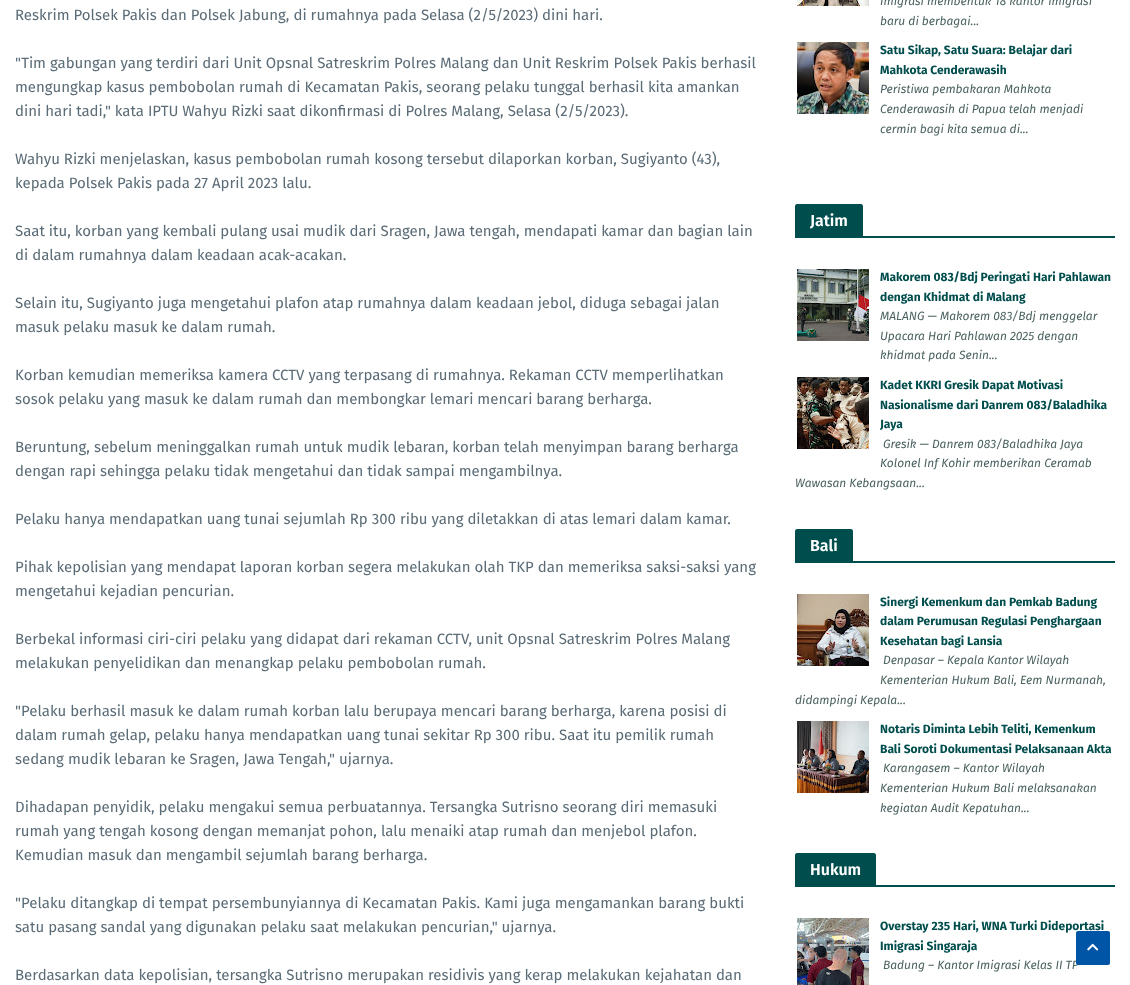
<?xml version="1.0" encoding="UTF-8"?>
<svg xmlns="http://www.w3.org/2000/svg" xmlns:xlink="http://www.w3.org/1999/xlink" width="1130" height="985">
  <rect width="100%" height="100%" fill="#ffffff" />
  <image x="797" y="0" width="72" height="6" xlink:href="image1.png" />
  <image x="797" y="42" width="72" height="72" xlink:href="image2.png" />
  <rect x="863" y="236" width="252" height="2" fill="#004d4d" />
  <path d="M 797 204 h 64 c 1 0 2 1 2 2 v 32 h -68 v -32 c 0 -1 1 -2 2 -2 z" fill="#004d4d" />
  <image x="797" y="269" width="72" height="72" xlink:href="image3.png" />
  <image x="797" y="377" width="72" height="72" xlink:href="image4.png" />
  <rect x="853" y="561" width="262" height="2" fill="#004d4d" />
  <path d="M 797 529 h 54 c 1 0 2 1 2 2 v 32 h -58 v -32 c 0 -1 1 -2 2 -2 z" fill="#004d4d" />
  <image x="797" y="594" width="72" height="72" xlink:href="image5.png" />
  <image x="797" y="721" width="72" height="72" xlink:href="image6.png" />
  <rect x="876" y="885" width="239" height="2" fill="#004d4d" />
  <path d="M 797 853 h 77 c 1 0 2 1 2 2 v 32 h -81 v -32 c 0 -1 1 -2 2 -2 z" fill="#004d4d" />
  <image x="797" y="918" width="72" height="67" xlink:href="image7.png" />
  <text x="15" y="20" style="font-family: Fira Sans; font-size: 15px; fill: #5b6c77">Reskrim Polsek Pakis dan Polsek Jabung, di rumahnya pada Selasa (2/5/2023) dini hari.</text>
  <text x="15" y="68" style="font-family: Fira Sans; font-size: 15px; fill: #5b6c77">"Tim gabungan yang terdiri dari Unit Opsnal Satreskrim Polres Malang dan Unit Reskrim Polsek Pakis berhasil</text>
  <text x="15" y="92" style="font-family: Fira Sans; font-size: 15px; fill: #5b6c77">mengungkap kasus pembobolan rumah di Kecamatan Pakis, seorang pelaku tunggal berhasil kita amankan</text>
  <text x="15" y="116" style="font-family: Fira Sans; font-size: 15px; fill: #5b6c77">dini hari tadi," kata IPTU Wahyu Rizki saat dikonfirmasi di Polres Malang, Selasa (2/5/2023).</text>
  <text x="15" y="164" style="font-family: Fira Sans; font-size: 15px; fill: #5b6c77">Wahyu Rizki menjelaskan, kasus pembobolan rumah kosong tersebut dilaporkan korban, Sugiyanto (43),</text>
  <text x="15" y="188" style="font-family: Fira Sans; font-size: 15px; fill: #5b6c77">kepada Polsek Pakis pada 27 April 2023 lalu.</text>
  <text x="15" y="236" style="font-family: Fira Sans; font-size: 15px; fill: #5b6c77">Saat itu, korban yang kembali pulang usai mudik dari Sragen, Jawa tengah, mendapati kamar dan bagian lain</text>
  <text x="15" y="260" style="font-family: Fira Sans; font-size: 15px; fill: #5b6c77">di dalam rumahnya dalam keadaan acak-acakan.</text>
  <text x="15" y="308" style="font-family: Fira Sans; font-size: 15px; fill: #5b6c77">Selain itu, Sugiyanto juga mengetahui plafon atap rumahnya dalam keadaan jebol, diduga sebagai jalan</text>
  <text x="15" y="332" style="font-family: Fira Sans; font-size: 15px; fill: #5b6c77">masuk pelaku masuk ke dalam rumah.</text>
  <text x="15" y="380" style="font-family: Fira Sans; font-size: 15px; fill: #5b6c77">Korban kemudian memeriksa kamera CCTV yang terpasang di rumahnya. Rekaman CCTV memperlihatkan</text>
  <text x="15" y="404" style="font-family: Fira Sans; font-size: 15px; fill: #5b6c77">sosok pelaku yang masuk ke dalam rumah dan membongkar lemari mencari barang berharga.</text>
  <text x="15" y="452" style="font-family: Fira Sans; font-size: 15px; fill: #5b6c77">Beruntung, sebelum meninggalkan rumah untuk mudik lebaran, korban telah menyimpan barang berharga</text>
  <text x="15" y="476" style="font-family: Fira Sans; font-size: 15px; fill: #5b6c77">dengan rapi sehingga pelaku tidak mengetahui dan tidak sampai mengambilnya.</text>
  <text x="15" y="524" style="font-family: Fira Sans; font-size: 15px; fill: #5b6c77">Pelaku hanya mendapatkan uang tunai sejumlah Rp 300 ribu yang diletakkan di atas lemari dalam kamar.</text>
  <text x="15" y="572" style="font-family: Fira Sans; font-size: 15px; fill: #5b6c77">Pihak kepolisian yang mendapat laporan korban segera melakukan olah TKP dan memeriksa saksi-saksi yang</text>
  <text x="15" y="596" style="font-family: Fira Sans; font-size: 15px; fill: #5b6c77">mengetahui kejadian pencurian.</text>
  <text x="15" y="644" style="font-family: Fira Sans; font-size: 15px; fill: #5b6c77">Berbekal informasi ciri-ciri pelaku yang didapat dari rekaman CCTV, unit Opsnal Satreskrim Polres Malang</text>
  <text x="15" y="668" style="font-family: Fira Sans; font-size: 15px; fill: #5b6c77">melakukan penyelidikan dan menangkap pelaku pembobolan rumah.</text>
  <text x="15" y="716" style="font-family: Fira Sans; font-size: 15px; fill: #5b6c77">"Pelaku berhasil masuk ke dalam rumah korban lalu berupaya mencari barang berharga, karena posisi di</text>
  <text x="15" y="740" style="font-family: Fira Sans; font-size: 15px; fill: #5b6c77">dalam rumah gelap, pelaku hanya mendapatkan uang tunai sekitar Rp 300 ribu. Saat itu pemilik rumah</text>
  <text x="15" y="764" style="font-family: Fira Sans; font-size: 15px; fill: #5b6c77">sedang mudik lebaran ke Sragen, Jawa Tengah," ujarnya.</text>
  <text x="15" y="812" style="font-family: Fira Sans; font-size: 15px; fill: #5b6c77">Dihadapan penyidik, pelaku mengakui semua perbuatannya. Tersangka Sutrisno seorang diri memasuki</text>
  <text x="15" y="836" style="font-family: Fira Sans; font-size: 15px; fill: #5b6c77">rumah yang tengah kosong dengan memanjat pohon, lalu menaiki atap rumah dan menjebol plafon.</text>
  <text x="15" y="860" style="font-family: Fira Sans; font-size: 15px; fill: #5b6c77">Kemudian masuk dan mengambil sejumlah barang berharga.</text>
  <text x="15" y="908" style="font-family: Fira Sans; font-size: 15px; fill: #5b6c77">"Pelaku ditangkap di tempat persembunyiannya di Kecamatan Pakis. Kami juga mengamankan barang bukti</text>
  <text x="15" y="932" style="font-family: Fira Sans; font-size: 15px; fill: #5b6c77">satu pasang sandal yang digunakan pelaku saat melakukan pencurian," ujarnya.</text>
  <text x="15" y="980" style="font-family: Fira Sans; font-size: 15px; fill: #5b6c77">Berdasarkan data kepolisian, tersangka Sutrisno merupakan residivis yang kerap melakukan kejahatan dan</text>
  <text x="880" y="5" style="font-family: Fira Sans; font-size: 12px; font-style: italic; fill: #4b6260">Imigrasi membentuk 18 kantor imigrasi</text>
  <text x="880" y="25" style="font-family: Fira Sans; font-size: 12px; font-style: italic; fill: #4b6260">baru di berbagai...</text>
  <text x="880" y="54" style="font-family: Fira Sans; font-size: 12px; font-weight: bold; fill: #004d4d">Satu Sikap, Satu Suara: Belajar dari</text>
  <text x="880" y="74" style="font-family: Fira Sans; font-size: 12px; font-weight: bold; fill: #004d4d">Mahkota Cenderawasih</text>
  <text x="880" y="93" style="font-family: Fira Sans; font-size: 12px; font-style: italic; fill: #4b6260">Peristiwa pembakaran Mahkota</text>
  <text x="880" y="113" style="font-family: Fira Sans; font-size: 12px; font-style: italic; fill: #4b6260">Cenderawasih di Papua telah menjadi</text>
  <text x="880" y="133" style="font-family: Fira Sans; font-size: 12px; font-style: italic; fill: #4b6260">cermin bagi kita semua di...</text>
  <text x="810" y="226" style="font-family: Fira Sans; font-size: 16px; font-weight: 600; fill: #ffffff">Jatim</text>
  <text x="880" y="281" style="font-family: Fira Sans; font-size: 12px; font-weight: bold; fill: #004d4d">Makorem 083/Bdj Peringati Hari Pahlawan</text>
  <text x="880" y="301" style="font-family: Fira Sans; font-size: 12px; font-weight: bold; fill: #004d4d">dengan Khidmat di Malang</text>
  <text x="880" y="320" style="font-family: Fira Sans; font-size: 12px; font-style: italic; fill: #4b6260">MALANG — Makorem 083/Bdj menggelar</text>
  <text x="880" y="340" style="font-family: Fira Sans; font-size: 12px; font-style: italic; fill: #4b6260">Upacara Hari Pahlawan 2025 dengan</text>
  <text x="880" y="359" style="font-family: Fira Sans; font-size: 12px; font-style: italic; fill: #4b6260">khidmat pada Senin...</text>
  <text x="880" y="389" style="font-family: Fira Sans; font-size: 12px; font-weight: bold; fill: #004d4d">Kadet KKRI Gresik Dapat Motivasi</text>
  <text x="880" y="409" style="font-family: Fira Sans; font-size: 12px; font-weight: bold; fill: #004d4d">Nasionalisme dari Danrem 083/Baladhika</text>
  <text x="880" y="428" style="font-family: Fira Sans; font-size: 12px; font-weight: bold; fill: #004d4d">Jaya</text>
  <text x="883" y="448" style="font-family: Fira Sans; font-size: 12px; font-style: italic; fill: #4b6260">Gresik — Danrem 083/Baladhika Jaya</text>
  <text x="880" y="467" style="font-family: Fira Sans; font-size: 12px; font-style: italic; fill: #4b6260">Kolonel Inf Kohir memberikan Ceramab</text>
  <text x="795" y="487" style="font-family: Fira Sans; font-size: 12px; font-style: italic; fill: #4b6260">Wawasan Kebangsaan...</text>
  <text x="810" y="551" style="font-family: Fira Sans; font-size: 16px; font-weight: 600; fill: #ffffff">Bali</text>
  <text x="880" y="606" style="font-family: Fira Sans; font-size: 12px; font-weight: bold; fill: #004d4d">Sinergi Kemenkum dan Pemkab Badung</text>
  <text x="880" y="625" style="font-family: Fira Sans; font-size: 12px; font-weight: bold; fill: #004d4d">dalam Perumusan Regulasi Penghargaan</text>
  <text x="880" y="645" style="font-family: Fira Sans; font-size: 12px; font-weight: bold; fill: #004d4d">Kesehatan bagi Lansia</text>
  <text x="883" y="664" style="font-family: Fira Sans; font-size: 12px; font-style: italic; fill: #4b6260">Denpasar – Kepala Kantor Wilayah</text>
  <text x="880" y="684" style="font-family: Fira Sans; font-size: 12px; font-style: italic; fill: #4b6260">Kementerian Hukum Bali, Eem Nurmanah,</text>
  <text x="795" y="704" style="font-family: Fira Sans; font-size: 12px; font-style: italic; fill: #4b6260">didampingi Kepala...</text>
  <text x="880" y="733" style="font-family: Fira Sans; font-size: 12px; font-weight: bold; fill: #004d4d">Notaris Diminta Lebih Teliti, Kemenkum</text>
  <text x="880" y="753" style="font-family: Fira Sans; font-size: 12px; font-weight: bold; fill: #004d4d">Bali Soroti Dokumentasi Pelaksanaan Akta</text>
  <text x="883" y="772" style="font-family: Fira Sans; font-size: 12px; font-style: italic; fill: #4b6260">Karangasem – Kantor Wilayah</text>
  <text x="880" y="792" style="font-family: Fira Sans; font-size: 12px; font-style: italic; fill: #4b6260">Kementerian Hukum Bali melaksanakan</text>
  <text x="880" y="812" style="font-family: Fira Sans; font-size: 12px; font-style: italic; fill: #4b6260">kegiatan Audit Kepatuhan...</text>
  <text x="810" y="875" style="font-family: Fira Sans; font-size: 16px; font-weight: 600; fill: #ffffff">Hukum</text>
  <text x="880" y="930" style="font-family: Fira Sans; font-size: 12px; font-weight: bold; fill: #004d4d">Overstay 235 Hari, WNA Turki Dideportasi</text>
  <text x="880" y="950" style="font-family: Fira Sans; font-size: 12px; font-weight: bold; fill: #004d4d">Imigrasi Singaraja</text>
  <text x="883" y="969" style="font-family: Fira Sans; font-size: 12px; font-style: italic; fill: #4b6260">Badung – Kantor Imigrasi Kelas II TP</text>
  <rect x="1076" y="931" width="34" height="34" rx="2" fill="#0055a6" />
  <image x="1087" y="943" width="12" height="8" xlink:href="image8.png" />
</svg>
